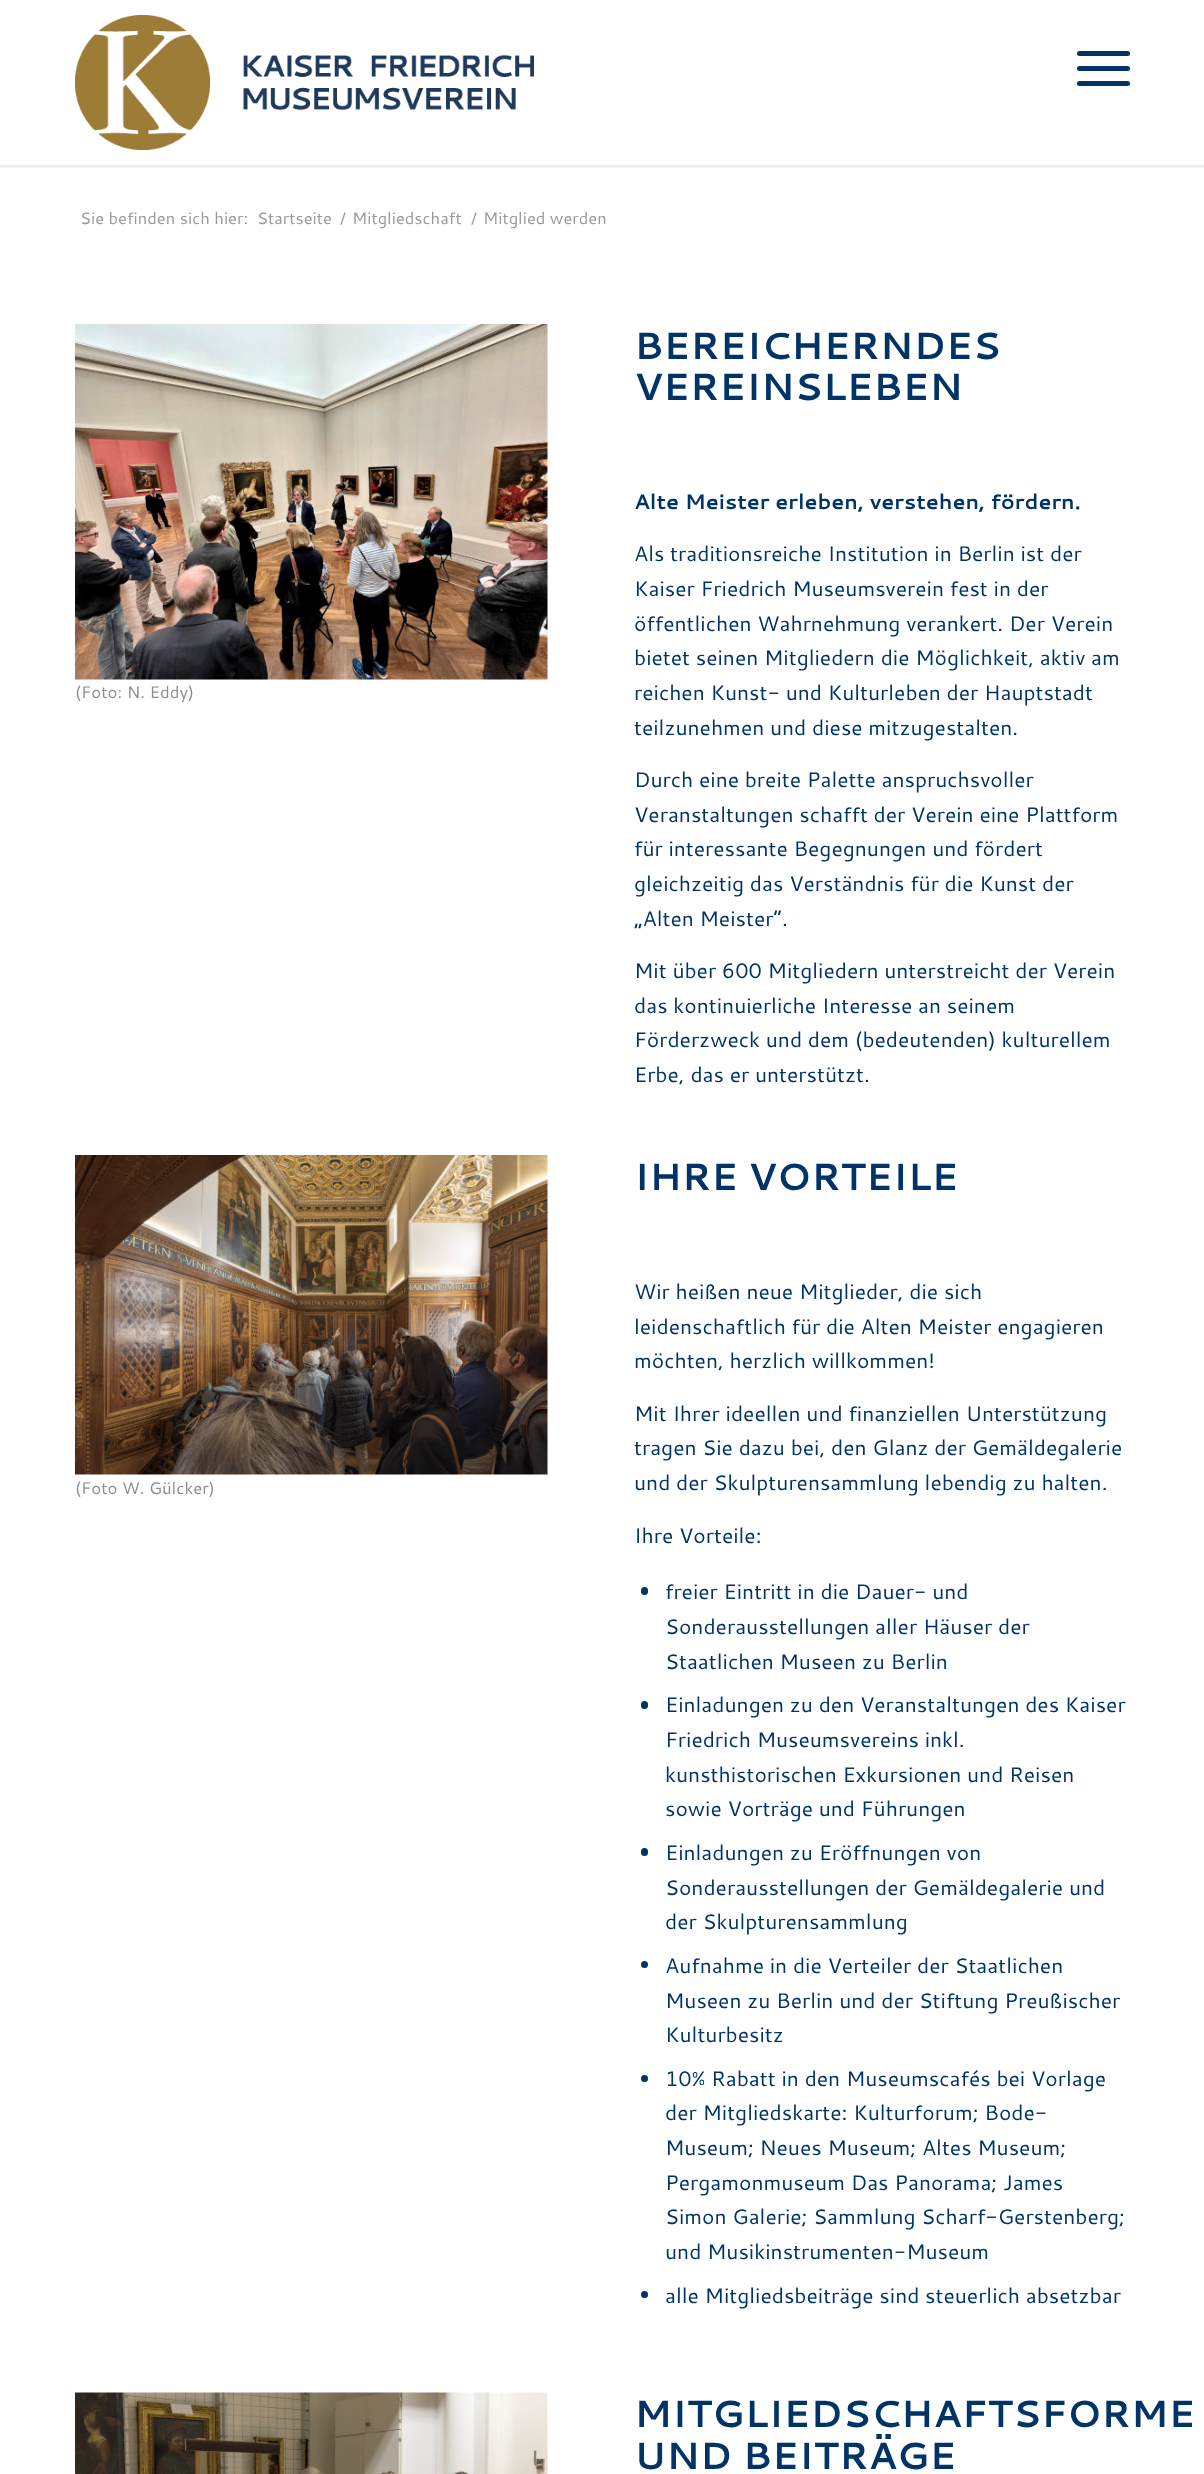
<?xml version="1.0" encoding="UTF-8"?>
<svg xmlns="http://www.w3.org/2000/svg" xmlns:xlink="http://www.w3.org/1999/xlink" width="1204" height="2474">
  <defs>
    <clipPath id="clip1"><rect x="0" y="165" width="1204" height="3" /></clipPath>
  </defs>
  <rect width="100%" height="100%" fill="#ffffff" />
  <g clip-path="url(#clip1)">
    <rect x="-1" y="-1" width="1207" height="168" fill="#000000" fill-opacity="0.1" filter="blur(1.5px)" />
  </g>
  <image x="75" y="15" width="459" height="135" xlink:href="image1.png" />
  <rect x="1077" y="66" width="53" height="5" rx="2.5" fill="#003366" />
  <rect x="1077" y="51" width="53" height="5" rx="2.5" fill="#003366" />
  <rect x="1077" y="81" width="53" height="5" rx="2.5" fill="#003366" />
  <image x="75" y="324" width="473" height="356" xlink:href="image2.png" />
  <image x="75" y="1155" width="473" height="320" xlink:href="image3.png" />
  <rect x="641" y="1587" width="7" height="8" rx="3.5" fill="#003366" />
  <rect x="641" y="1701" width="7" height="8" rx="3.5" fill="#003366" />
  <rect x="641" y="1848" width="7" height="8" rx="3.5" fill="#003366" />
  <circle cx="644.5" cy="1964.5" r="3.5" fill="#003366" />
  <circle cx="644.5" cy="2078.5" r="3.5" fill="#003366" />
  <circle cx="644.5" cy="2294.5" r="3.5" fill="#003366" />
  <image x="75" y="2392" width="473" height="82" xlink:href="image4.png" />
  <text x="80" y="224" style="font-family: Cantarell; font-size: 16.5px; fill: #999999">Sie befinden sich hier:</text>
  <text x="257" y="224" style="font-family: Cantarell; font-size: 16.5px; fill: #999999">Startseite</text>
  <text x="340" y="224" style="font-family: Cantarell; font-size: 16.5px; fill: #999999">/</text>
  <text x="352" y="224" style="font-family: Cantarell; font-size: 16.5px; fill: #999999">Mitgliedschaft</text>
  <text x="471" y="224" style="font-family: Cantarell; font-size: 16.5px; fill: #999999">/</text>
  <text x="483" y="224" style="font-family: Cantarell; font-size: 16.5px; fill: #999999">Mitglied werden</text>
  <text x="75" y="698" style="font-family: Cantarell; font-size: 16.75px; fill: #8d8d8d">(Foto: N. Eddy)</text>
  <text x="634" y="359" style="font-family: Cantarell; font-size: 37.75px; font-weight: bold; fill: #003366">BEREICHERNDES</text>
  <text x="634" y="400" style="font-family: Cantarell; font-size: 37.75px; font-weight: bold; fill: #003366">VEREINSLEBEN</text>
  <text x="634" y="509" style="font-family: Cantarell; font-size: 21px; font-weight: bold; fill: #003366">Alte Meister erleben, verstehen, fördern.</text>
  <text x="634" y="561" style="font-family: Cantarell; font-size: 21px; fill: #003366">Als traditionsreiche Institution in Berlin ist der</text>
  <text x="634" y="596" style="font-family: Cantarell; font-size: 21px; fill: #003366">Kaiser Friedrich Museumsverein fest in der</text>
  <text x="634" y="631" style="font-family: Cantarell; font-size: 21px; fill: #003366">öffentlichen Wahrnehmung verankert. Der Verein</text>
  <text x="634" y="665" style="font-family: Cantarell; font-size: 21px; fill: #003366">bietet seinen Mitgliedern die Möglichkeit, aktiv am</text>
  <text x="634" y="700" style="font-family: Cantarell; font-size: 21px; fill: #003366">reichen Kunst- und Kulturleben der Hauptstadt</text>
  <text x="634" y="735" style="font-family: Cantarell; font-size: 21px; fill: #003366">teilzunehmen und diese mitzugestalten.</text>
  <text x="634" y="787" style="font-family: Cantarell; font-size: 21px; fill: #003366">Durch eine breite Palette anspruchsvoller</text>
  <text x="634" y="822" style="font-family: Cantarell; font-size: 21px; fill: #003366">Veranstaltungen schafft der Verein eine Plattform</text>
  <text x="634" y="856" style="font-family: Cantarell; font-size: 21px; fill: #003366">für interessante Begegnungen und fördert</text>
  <text x="634" y="891" style="font-family: Cantarell; font-size: 21px; fill: #003366">gleichzeitig das Verständnis für die Kunst der</text>
  <text x="634" y="926" style="font-family: Cantarell; font-size: 21px; fill: #003366">„Alten Meister“.</text>
  <text x="634" y="978" style="font-family: Cantarell; font-size: 21px; fill: #003366">Mit über 600 Mitgliedern unterstreicht der Verein</text>
  <text x="634" y="1013" style="font-family: Cantarell; font-size: 21px; fill: #003366">das kontinuierliche Interesse an seinem</text>
  <text x="634" y="1047" style="font-family: Cantarell; font-size: 21px; fill: #003366">Förderzweck und dem (bedeutenden) kulturellem</text>
  <text x="634" y="1082" style="font-family: Cantarell; font-size: 21px; fill: #003366">Erbe, das er unterstützt.</text>
  <text x="75" y="1494" style="font-family: Cantarell; font-size: 16.75px; fill: #8d8d8d">(Foto W. Gülcker)</text>
  <text x="634" y="1190" style="font-family: Cantarell; font-size: 37.75px; font-weight: bold; fill: #003366">IHRE VORTEILE</text>
  <text x="634" y="1299" style="font-family: Cantarell; font-size: 21px; fill: #003366">Wir heißen neue Mitglieder, die sich</text>
  <text x="634" y="1334" style="font-family: Cantarell; font-size: 21px; fill: #003366">leidenschaftlich für die Alten Meister engagieren</text>
  <text x="634" y="1368" style="font-family: Cantarell; font-size: 21px; fill: #003366">möchten, herzlich willkommen!</text>
  <text x="634" y="1421" style="font-family: Cantarell; font-size: 21px; fill: #003366">Mit Ihrer ideellen und finanziellen Unterstützung</text>
  <text x="634" y="1455" style="font-family: Cantarell; font-size: 21px; fill: #003366">tragen Sie dazu bei, den Glanz der Gemäldegalerie</text>
  <text x="634" y="1490" style="font-family: Cantarell; font-size: 21px; fill: #003366">und der Skulpturensammlung lebendig zu halten.</text>
  <text x="634" y="1543" style="font-family: Cantarell; font-size: 21px; fill: #003366">Ihre Vorteile:</text>
  <text x="665" y="1599" style="font-family: Cantarell; font-size: 21px; fill: #003366">freier Eintritt in die Dauer- und</text>
  <text x="665" y="1634" style="font-family: Cantarell; font-size: 21px; fill: #003366">Sonderausstellungen aller Häuser der</text>
  <text x="665" y="1669" style="font-family: Cantarell; font-size: 21px; fill: #003366">Staatlichen Museen zu Berlin</text>
  <text x="665" y="1712" style="font-family: Cantarell; font-size: 21px; fill: #003366">Einladungen zu den Veranstaltungen des Kaiser</text>
  <text x="665" y="1747" style="font-family: Cantarell; font-size: 21px; fill: #003366">Friedrich Museumsvereins inkl.</text>
  <text x="665" y="1782" style="font-family: Cantarell; font-size: 21px; fill: #003366">kunsthistorischen Exkursionen und Reisen</text>
  <text x="665" y="1816" style="font-family: Cantarell; font-size: 21px; fill: #003366">sowie Vorträge und Führungen</text>
  <text x="665" y="1860" style="font-family: Cantarell; font-size: 21px; fill: #003366">Einladungen zu Eröffnungen von</text>
  <text x="665" y="1895" style="font-family: Cantarell; font-size: 21px; fill: #003366">Sonderausstellungen der Gemäldegalerie und</text>
  <text x="665" y="1929" style="font-family: Cantarell; font-size: 21px; fill: #003366">der Skulpturensammlung</text>
  <text x="665" y="1973" style="font-family: Cantarell; font-size: 21px; fill: #003366">Aufnahme in die Verteiler der Staatlichen</text>
  <text x="665" y="2008" style="font-family: Cantarell; font-size: 21px; fill: #003366">Museen zu Berlin und der Stiftung Preußischer</text>
  <text x="665" y="2042" style="font-family: Cantarell; font-size: 21px; fill: #003366">Kulturbesitz</text>
  <text x="665" y="2086" style="font-family: Cantarell; font-size: 21px; fill: #003366">10% Rabatt in den Museumscafés bei Vorlage</text>
  <text x="665" y="2120" style="font-family: Cantarell; font-size: 21px; fill: #003366">der Mitgliedskarte: Kulturforum; Bode-</text>
  <text x="665" y="2155" style="font-family: Cantarell; font-size: 21px; fill: #003366">Museum; Neues Museum; Altes Museum;</text>
  <text x="665" y="2190" style="font-family: Cantarell; font-size: 21px; fill: #003366">Pergamonmuseum Das Panorama; James</text>
  <text x="665" y="2224" style="font-family: Cantarell; font-size: 21px; fill: #003366">Simon Galerie; Sammlung Scharf-Gerstenberg;</text>
  <text x="665" y="2259" style="font-family: Cantarell; font-size: 21px; fill: #003366">und Musikinstrumenten-Museum</text>
  <text x="665" y="2303" style="font-family: Cantarell; font-size: 21px; fill: #003366">alle Mitgliedsbeiträge sind steuerlich absetzbar</text>
  <text x="634" y="2427" style="font-family: Cantarell; font-size: 37.75px; font-weight: bold; fill: #003366">MITGLIEDSCHAFTSFORME</text>
  <text x="634" y="2469" style="font-family: Cantarell; font-size: 37.75px; font-weight: bold; fill: #003366">UND BEITRÄGE</text>
</svg>
